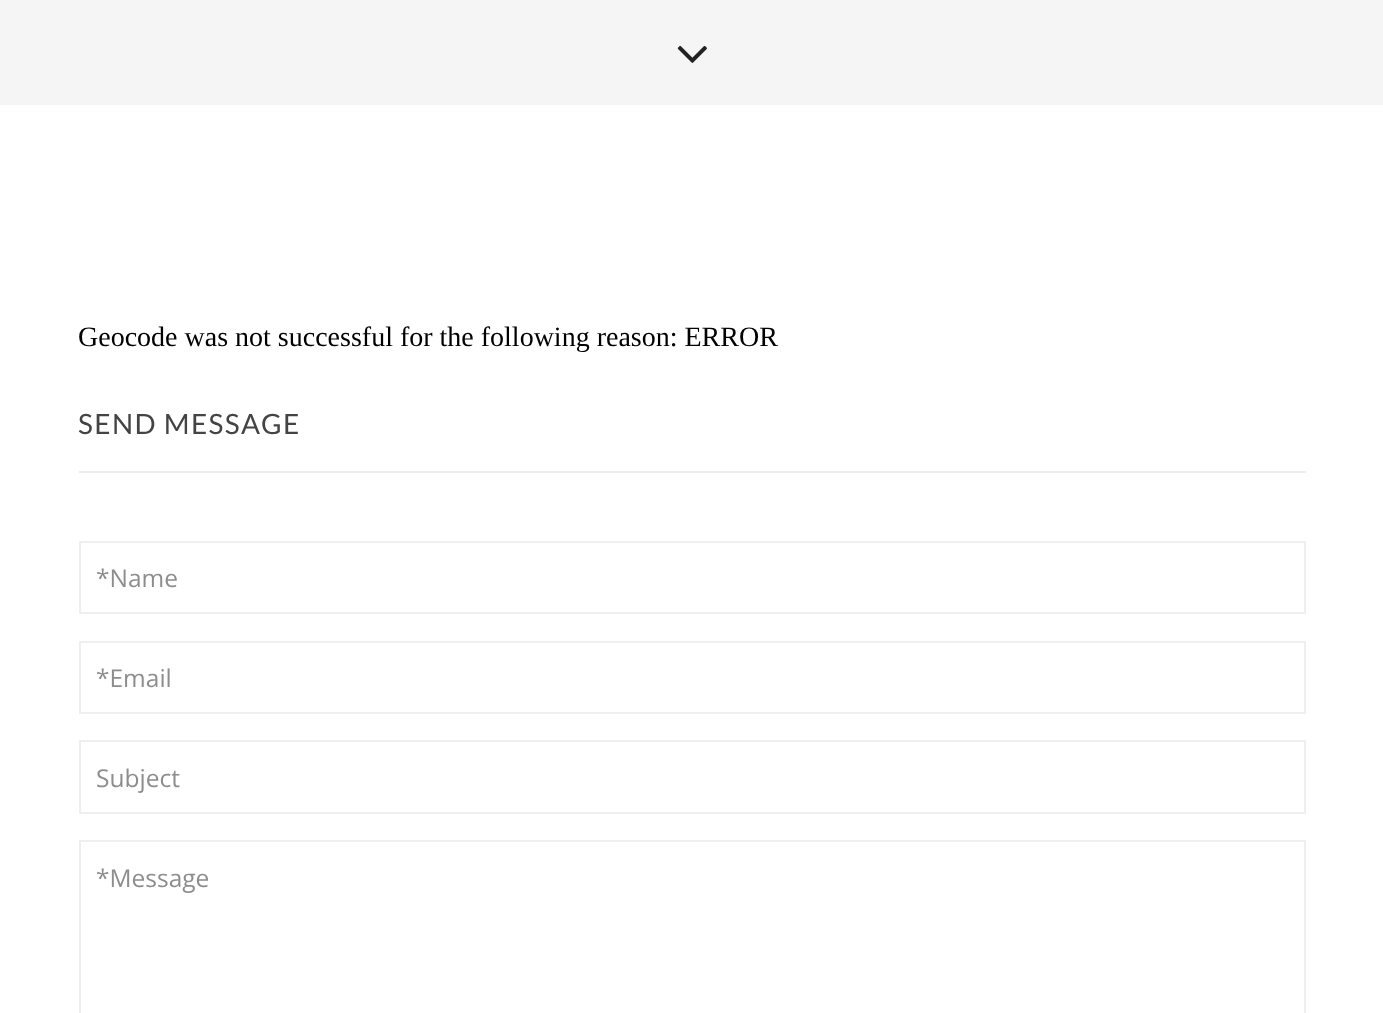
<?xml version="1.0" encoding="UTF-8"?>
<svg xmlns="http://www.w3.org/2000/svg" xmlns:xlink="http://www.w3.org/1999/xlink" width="1383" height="1013">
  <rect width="100%" height="100%" fill="#ffffff" />
  <rect width="1383" height="105" fill="#f5f5f5" />
  <image x="677" y="45" width="30" height="18" xlink:href="image1.png" />
  <rect x="79" y="471" width="1227" height="2" fill="#ededed" />
  <rect x="80" y="542" width="1225" height="71" fill="none" stroke="#efefef" stroke-width="2" />
  <rect x="80" y="642" width="1225" height="71" fill="none" stroke="#efefef" stroke-width="2" />
  <rect x="80" y="741" width="1225" height="72" fill="none" stroke="#efefef" stroke-width="2" />
  <rect x="80" y="841" width="1225" height="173" fill="none" stroke="#efefef" stroke-width="2" />
  <text x="78" y="346" style="font-family: Liberation Serif; font-size: 28px; fill: #000000">Geocode was not successful for the following reason: ERROR</text>
  <text x="78" y="434" style="font-family: Lato; font-size: 28px; letter-spacing: 1.4px; fill: #444444">SEND MESSAGE</text>
  <text x="96" y="587" style="font-family: Open Sans; font-size: 24.5px; fill: #8d8d8d">*Name</text>
  <text x="96" y="687" style="font-family: Open Sans; font-size: 24.5px; fill: #8d8d8d">*Email</text>
  <text x="96" y="787" style="font-family: Open Sans; font-size: 24.5px; fill: #8d8d8d">Subject</text>
  <text x="96" y="887" style="font-family: Open Sans; font-size: 24.5px; fill: #8d8d8d">*Message</text>
</svg>
